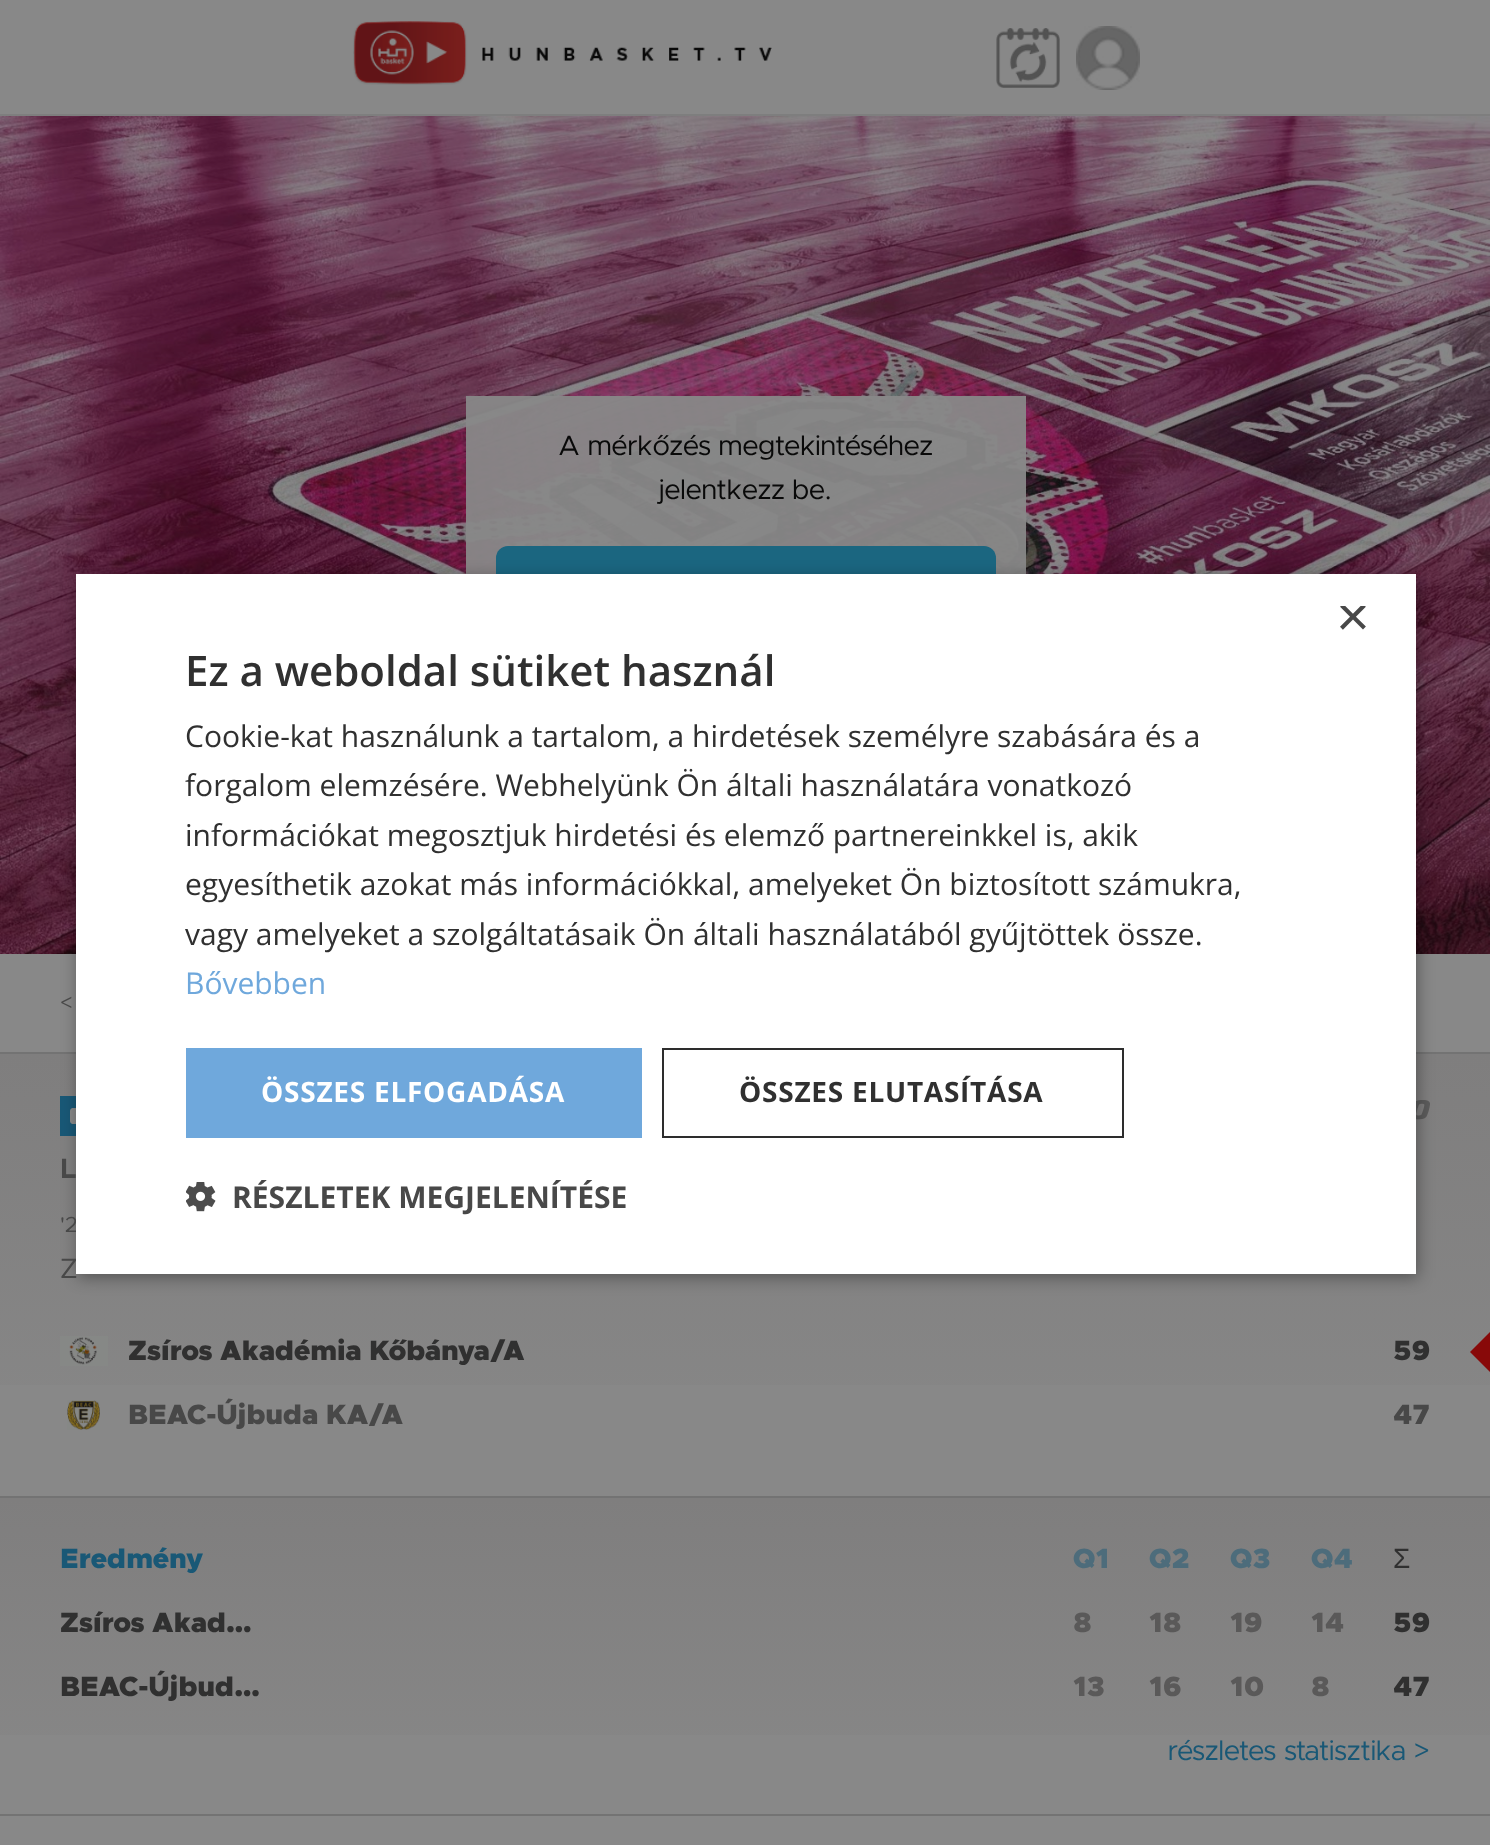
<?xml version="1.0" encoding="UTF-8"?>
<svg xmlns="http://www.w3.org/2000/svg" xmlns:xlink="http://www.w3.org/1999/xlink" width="1490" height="1845">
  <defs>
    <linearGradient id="g1" gradientUnits="userSpaceOnUse" x1="745" y1="1054" x2="745" y2="1496"><stop offset="0" stop-color="#7f7e7e" /><stop offset="1" stop-color="#888888" /></linearGradient>
    <linearGradient id="g2" gradientUnits="userSpaceOnUse" x1="745" y1="1498" x2="745" y2="1814"><stop offset="0" stop-color="#7f7e7e" /><stop offset="1" stop-color="#888888" /></linearGradient>
    <clipPath id="clip1"><rect x="1336" y="606" width="30" height="30" /></clipPath>
  </defs>
  <rect width="100%" height="100%" fill="#888888" />
  <rect y="114" width="1490" height="2" fill="#7e7e7e" />
  <image x="353" y="21" width="419" height="64" xlink:href="image1.png" />
  <image x="996" y="28" width="64" height="60" xlink:href="image2.png" />
  <image x="1076" y="26" width="64" height="64" xlink:href="image3.png" />
  <image x="0" y="116" width="1490" height="838" xlink:href="image4.png" />
  <rect x="466" y="396" width="560" height="178" fill="#888888" fill-opacity="0.95" />
  <rect x="496" y="546" width="500" height="80" rx="12" fill="#1b6680" />
  <rect y="1052" width="1490" height="2" fill="#737373" />
  <rect y="1054" width="1490" height="331" fill="url(#g1)" />
  <rect y="1496" width="1490" height="2" fill="#737373" />
  <rect x="60" y="1096" width="16" height="40" fill="#195876" />
  <image x="70" y="1108" width="6" height="16" xlink:href="image5.png" />
  <image x="1416" y="1100" width="14" height="20" xlink:href="image6.png" />
  <image x="60" y="1336" width="48" height="30" xlink:href="image7.png" />
  <path d="M 1490 1332 v 40 l -20 -20 z" fill="#880909" />
  <image x="67" y="1400" width="33" height="30" xlink:href="image8.png" />
  <rect y="1498" width="1490" height="237" fill="url(#g2)" />
  <rect y="1814" width="1490" height="2" fill="#737373" />
  <rect x="78" y="578" width="1340" height="700" fill="#000000" fill-opacity="0.35" filter="blur(8px)" />
  <text x="558" y="455" style="font-family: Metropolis; font-size: 28px; fill: #090909">A mérkőzés megtekintéséhez</text>
  <text x="659" y="499" style="font-family: Metropolis; font-size: 28px; fill: #090909">jelentkezz be.</text>
  <text x="60" y="1010" style="font-family: Metropolis; font-size: 22px; fill: #484848">&lt;</text>
  <text x="60" y="1178" style="font-family: Metropolis; font-size: 28px; font-weight: bold; fill: #484848">L</text>
  <text x="60" y="1232" style="font-family: Metropolis; font-size: 22px; fill: #484848">'2</text>
  <text x="60" y="1278" style="font-family: Metropolis; font-size: 28px; fill: #484848">Z</text>
  <text x="128" y="1360" style="font-family: Metropolis; font-size: 28px; font-weight: 900; fill: #303030">Zsíros Akadémia Kőbánya/A</text>
  <text x="1393" y="1360" style="font-family: Metropolis; font-size: 28px; font-weight: 900; fill: #303030">59</text>
  <text x="128" y="1424" style="font-family: Metropolis; font-size: 28px; font-weight: 900; fill: #484848">BEAC-Újbuda KA/A</text>
  <text x="1393" y="1424" style="font-family: Metropolis; font-size: 28px; font-weight: 900; fill: #484848">47</text>
  <text x="60" y="1568" style="font-family: Metropolis; font-size: 28px; font-weight: 900; fill: #195876">Eredmény</text>
  <text x="60" y="1632" style="font-family: Metropolis; font-size: 28px; font-weight: 900; fill: #303030">Zsíros Akad…</text>
  <text x="60" y="1696" style="font-family: Metropolis; font-size: 28px; font-weight: 900; fill: #303030">BEAC-Újbud…</text>
  <text x="1073" y="1568" style="font-family: Metropolis; font-size: 28px; font-weight: 900; fill: #4d6c7b">Q1</text>
  <text x="1073" y="1632" style="font-family: Metropolis; font-size: 28px; font-weight: 900; fill: #5a5959">8</text>
  <text x="1073" y="1696" style="font-family: Metropolis; font-size: 28px; font-weight: 900; fill: #5a5959">13</text>
  <text x="1149" y="1568" style="font-family: Metropolis; font-size: 28px; font-weight: 900; fill: #4d6c7b">Q2</text>
  <text x="1149" y="1632" style="font-family: Metropolis; font-size: 28px; font-weight: 900; fill: #5a5959">18</text>
  <text x="1149" y="1696" style="font-family: Metropolis; font-size: 28px; font-weight: 900; fill: #5a5959">16</text>
  <text x="1230" y="1568" style="font-family: Metropolis; font-size: 28px; font-weight: 900; fill: #4d6c7b">Q3</text>
  <text x="1230" y="1632" style="font-family: Metropolis; font-size: 28px; font-weight: 900; fill: #5a5959">19</text>
  <text x="1230" y="1696" style="font-family: Metropolis; font-size: 28px; font-weight: 900; fill: #5a5959">10</text>
  <text x="1311" y="1568" style="font-family: Metropolis; font-size: 28px; font-weight: 900; fill: #4d6c7b">Q4</text>
  <text x="1311" y="1632" style="font-family: Metropolis; font-size: 28px; font-weight: 900; fill: #5a5959">14</text>
  <text x="1311" y="1696" style="font-family: Metropolis; font-size: 28px; font-weight: 900; fill: #5a5959">8</text>
  <text x="1393" y="1568" style="font-family: Liberation Sans; font-size: 28px; fill: #303030">Σ</text>
  <text x="1393" y="1632" style="font-family: Metropolis; font-size: 28px; font-weight: 900; fill: #303030">59</text>
  <text x="1393" y="1696" style="font-family: Metropolis; font-size: 28px; font-weight: 900; fill: #303030">47</text>
  <text x="1168" y="1760" style="font-family: Metropolis; font-size: 28px; fill: #195876">részletes statisztika &gt;</text>
  <rect x="76" y="574" width="1340" height="700" fill="#ffffff" />
  <g clip-path="url(#clip1)">
    <text x="1336" y="636" style="font-family: Liberation Sans; font-size: 58px; fill: #484848">×</text>
  </g>
  <text x="185" y="686" style="font-family: Open Sans; font-size: 42px; font-weight: 600; fill: #303030">Ez a weboldal sütiket használ</text>
  <text x="185" y="747" style="font-family: Open Sans; font-size: 30px; fill: #303030">Cookie-kat használunk a tartalom, a hirdetések személyre szabására és a</text>
  <text x="185" y="796" style="font-family: Open Sans; font-size: 30px; fill: #303030">forgalom elemzésére. Webhelyünk Ön általi használatára vonatkozó</text>
  <text x="185" y="846" style="font-family: Open Sans; font-size: 30px; fill: #303030">információkat megosztjuk hirdetési és elemző partnereinkkel is, akik</text>
  <text x="185" y="895" style="font-family: Open Sans; font-size: 30px; fill: #303030">egyesíthetik azokat más információkkal, amelyeket Ön biztosított számukra,</text>
  <text x="185" y="945" style="font-family: Open Sans; font-size: 30px; fill: #303030">vagy amelyeket a szolgáltatásaik Ön általi használatából gyűjtöttek össze.</text>
  <text x="185" y="994" style="font-family: Open Sans; font-size: 30px; fill: #6fa8dc">Bővebben</text>
  <rect x="186" y="1048" width="456" height="90" fill="#6fa8dc" />
  <text x="261" y="1102" style="font-family: Open Sans; font-size: 28px; font-weight: bold; letter-spacing: 0.75px; fill: #ffffff">ÖSSZES ELFOGADÁSA</text>
  <rect x="663" y="1049" width="460" height="88" fill="none" stroke="#2d2d2d" stroke-width="2" />
  <text x="739" y="1102" style="font-family: Open Sans; font-size: 28px; font-weight: bold; letter-spacing: 0.75px; fill: #303030">ÖSSZES ELUTASÍTÁSA</text>
  <image x="186" y="1182" width="30" height="30" xlink:href="image9.png" />
  <text x="232" y="1208" style="font-family: Open Sans; font-size: 30px; font-weight: bold; fill: #484848">RÉSZLETEK MEGJELENÍTÉSE</text>
</svg>
